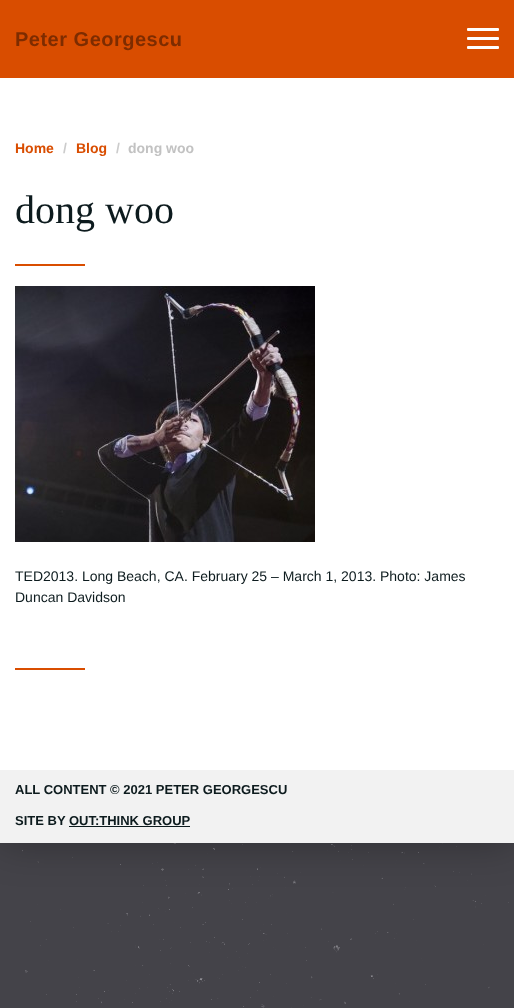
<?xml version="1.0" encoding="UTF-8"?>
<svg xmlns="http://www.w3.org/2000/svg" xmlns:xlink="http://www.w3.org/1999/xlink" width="514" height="1008">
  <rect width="100%" height="100%" fill="#ffffff" />
  <image x="0" y="843" width="514" height="165" xlink:href="image1.png" />
  <rect width="514" height="843" fill="#000000" fill-opacity="0.3" filter="blur(20px)" />
  <rect y="78" width="514" height="692" fill="#ffffff" />
  <rect width="514" height="78" fill="#d94d00" />
  <rect x="467" y="28" width="32" height="3" rx="1" fill="#ffffff" />
  <rect x="467" y="37" width="32" height="3" rx="1" fill="#ffffff" />
  <rect x="467" y="46" width="32" height="3" rx="1" fill="#ffffff" />
  <rect x="15" y="264" width="70" height="2" fill="#d94d00" />
  <image x="15" y="286" width="300" height="256" xlink:href="image2.png" />
  <rect x="15" y="668" width="70" height="2" fill="#d94d00" />
  <rect y="770" width="514" height="73" fill="#f2f2f2" />
  <rect x="69" y="826" width="121" height="1" fill="#0d1b1e" />
  <text x="15" y="46" style="font-family: Liberation Sans; font-size: 20px; font-weight: bold; letter-spacing: 0.5px; fill: #7d2c00">Peter Georgescu</text>
  <text x="15" y="153" style="font-family: Liberation Sans; font-size: 14px; font-weight: bold; fill: #d94d00">Home</text>
  <text x="63" y="153" style="font-family: Liberation Sans; font-size: 14px; font-weight: bold; fill: #cccccc">/</text>
  <text x="76" y="153" style="font-family: Liberation Sans; font-size: 14px; font-weight: bold; fill: #d94d00">Blog</text>
  <text x="116" y="153" style="font-family: Liberation Sans; font-size: 14px; font-weight: bold; fill: #cccccc">/</text>
  <text x="128" y="153" style="font-family: Liberation Sans; font-size: 14px; font-weight: bold; fill: #c2c2c2">dong woo</text>
  <text x="15" y="223" style="font-family: Liberation Serif; font-size: 40px; fill: #0d1b1e">dong woo</text>
  <text x="15" y="581" style="font-family: Liberation Sans; font-size: 14px; fill: #0d1b1e">TED2013. Long Beach, CA. February 25 – March 1, 2013. Photo: James</text>
  <text x="15" y="602" style="font-family: Liberation Sans; font-size: 14px; fill: #0d1b1e">Duncan Davidson</text>
  <text x="15" y="794" style="font-family: Liberation Sans; font-size: 13px; font-weight: bold; fill: #0d1b1e">ALL CONTENT © 2021 PETER GEORGESCU</text>
  <text x="15" y="825" style="font-family: Liberation Sans; font-size: 13px; font-weight: bold; fill: #0d1b1e">SITE BY OUT:THINK GROUP</text>
</svg>
